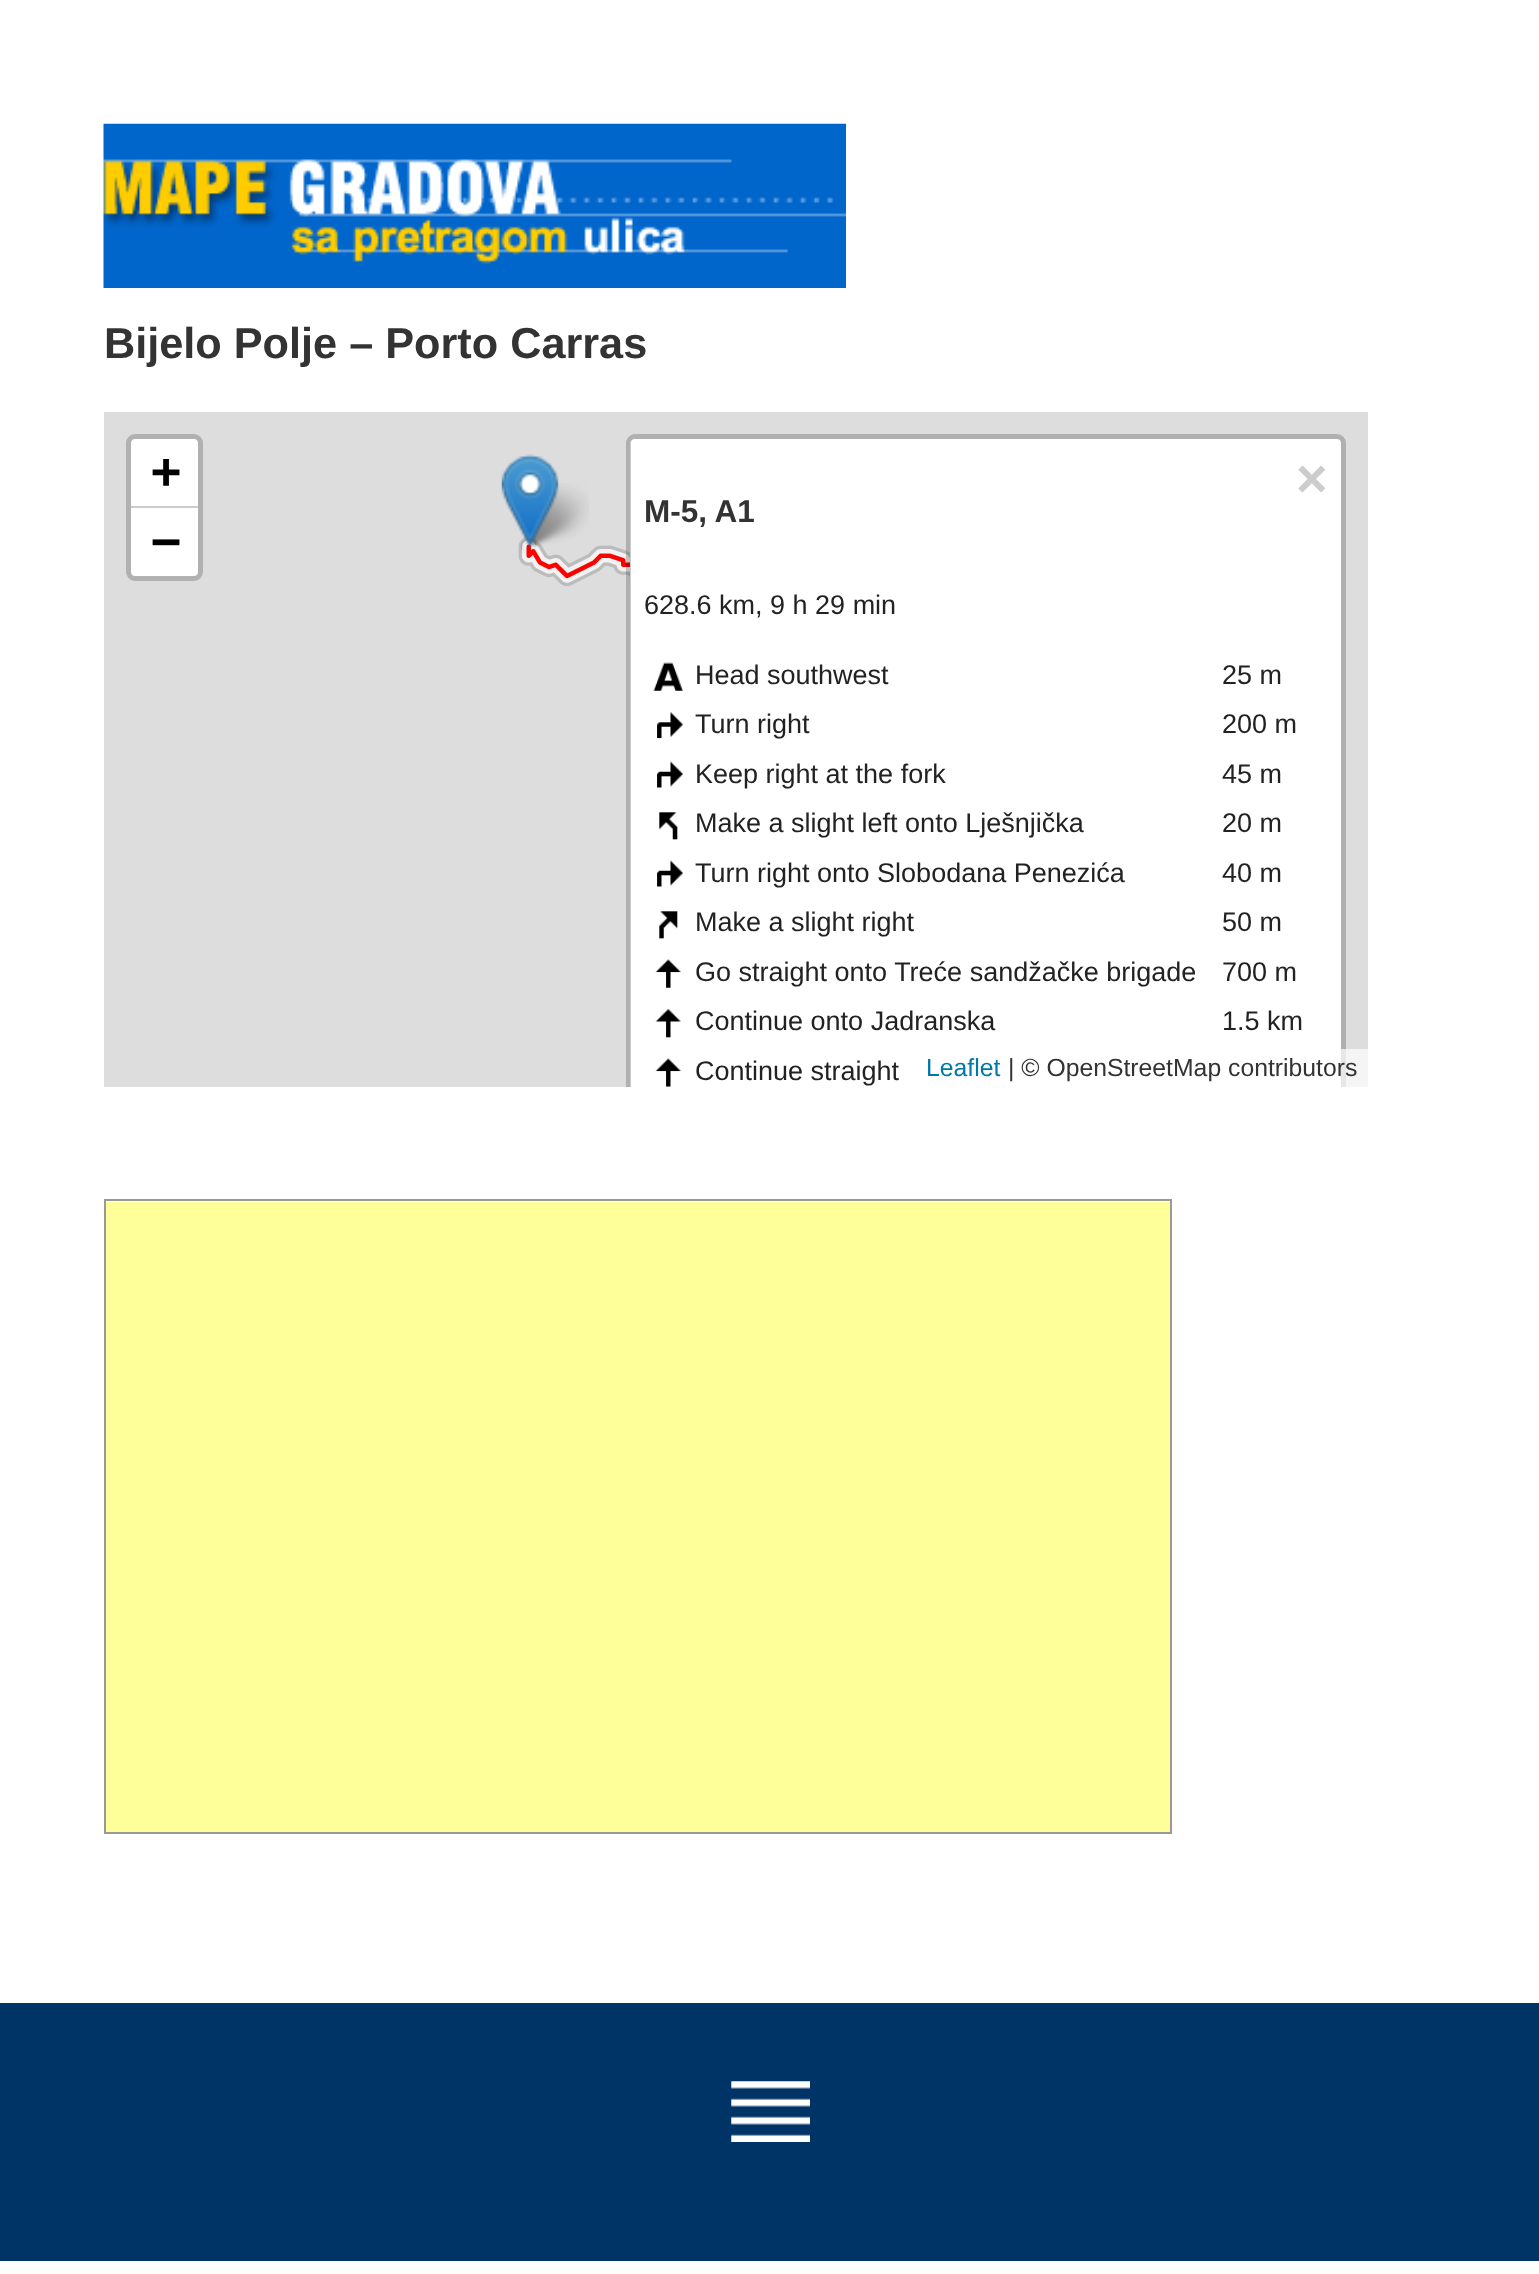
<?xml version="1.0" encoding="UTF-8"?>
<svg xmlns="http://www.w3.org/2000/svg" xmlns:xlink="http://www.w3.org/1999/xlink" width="1539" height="2274">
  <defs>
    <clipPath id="clip1"><rect x="104" y="412" width="1264" height="675" /></clipPath>
  </defs>
  <rect width="100%" height="100%" fill="#ffffff" />
  <image x="103" y="123" width="743" height="165" xlink:href="image1.png" />
  <rect x="104" y="412" width="1264" height="675" fill="#dddddd" />
  <image x="518" y="536" width="112" height="50" xlink:href="image4.png" />
  <image x="522" y="483" width="67" height="64" xlink:href="image3.png" />
  <image x="501" y="454" width="58" height="94" xlink:href="image2.png" />
  <rect x="128.5" y="436.5" width="72" height="142" rx="6.5" fill="none" stroke="#b1b1b1" stroke-width="5" />
  <path d="M 136 439 h 57 c 3 0 5 2 5 5 v 65 h -67 v -65 c 0 -3 2 -5 5 -5 z" fill="#ffffff" />
  <rect x="131" y="506" width="67" height="2" fill="#cccccc" />
  <path d="M 131 509 h 67 v 62 c 0 3 -2 5 -5 5 h -57 c -3 0 -5 -2 -5 -5 z" fill="#ffffff" />
  <path d="M 635 439 h 701 c 3 0 5 2 5 5 v 643 h -711 v -643 c 0 -3 2 -5 5 -5 z" fill="#ffffff" />
  <rect x="105" y="1200" width="1066" height="633" fill="none" stroke="#999999" stroke-width="2" />
  <rect x="106" y="1202" width="1064" height="630" fill="#ffff99" />
  <g clip-path="url(#clip1)">
    <rect x="628.5" y="436.5" width="715" height="778" rx="6.5" fill="none" stroke="#000000" stroke-opacity="0.2" stroke-width="5" />
  </g>
  <image x="653" y="662" width="30" height="29" xlink:href="image5.png" />
  <image x="657" y="712" width="26" height="27" xlink:href="image6.png" />
  <image x="657" y="761" width="26" height="27" xlink:href="image7.png" />
  <image x="659" y="812" width="19" height="28" xlink:href="image8.png" />
  <image x="657" y="860" width="26" height="27" xlink:href="image7.png" />
  <image x="659" y="911" width="19" height="28" xlink:href="image9.png" />
  <image x="655" y="959" width="26" height="29" xlink:href="image10.png" />
  <image x="655" y="1009" width="26" height="29" xlink:href="image11.png" />
  <image x="655" y="1058" width="26" height="29" xlink:href="image12.png" />
  <rect x="1341" y="1049" width="27" height="38" fill="#ffffff" fill-opacity="0.7" />
  <rect y="2003" width="1539" height="258" fill="#003366" />
  <image x="731" y="2081" width="79" height="61" xlink:href="image13.png" />
  <text x="104" y="358" style="font-family: Liberation Sans; font-size: 43.25px; font-weight: bold; fill: #333333">Bijelo Polje – Porto Carras</text>
  <text x="151" y="488" style="font-family: DejaVu Sans Mono; font-size: 50px; font-weight: bold; fill: #000000">+</text>
  <text x="151" y="558" style="font-family: DejaVu Sans Mono; font-size: 50px; font-weight: bold; fill: #000000">−</text>
  <text x="1296" y="497" style="font-family: Liberation Sans; font-size: 54px; font-weight: bold; fill: #cccccc">×</text>
  <text x="644" y="522" style="font-family: Liberation Sans; font-size: 31.5px; font-weight: bold; fill: #333333">M-5, A1</text>
  <text x="644" y="614" style="font-family: Liberation Sans; font-size: 27px; fill: #222222">628.6 km, 9 h 29 min</text>
  <text x="695" y="684" style="font-family: Liberation Sans; font-size: 27px; fill: #222222">Head southwest</text>
  <text x="1222" y="684" style="font-family: Liberation Sans; font-size: 27px; fill: #222222">25 m</text>
  <text x="695" y="733" style="font-family: Liberation Sans; font-size: 27px; fill: #222222">Turn right</text>
  <text x="1222" y="733" style="font-family: Liberation Sans; font-size: 27px; fill: #222222">200 m</text>
  <text x="695" y="783" style="font-family: Liberation Sans; font-size: 27px; fill: #222222">Keep right at the fork</text>
  <text x="1222" y="783" style="font-family: Liberation Sans; font-size: 27px; fill: #222222">45 m</text>
  <text x="695" y="832" style="font-family: Liberation Sans; font-size: 27px; fill: #222222">Make a slight left onto Lješnjička</text>
  <text x="1222" y="832" style="font-family: Liberation Sans; font-size: 27px; fill: #222222">20 m</text>
  <text x="695" y="882" style="font-family: Liberation Sans; font-size: 27px; fill: #222222">Turn right onto Slobodana Penezića</text>
  <text x="1222" y="882" style="font-family: Liberation Sans; font-size: 27px; fill: #222222">40 m</text>
  <text x="695" y="931" style="font-family: Liberation Sans; font-size: 27px; fill: #222222">Make a slight right</text>
  <text x="1222" y="931" style="font-family: Liberation Sans; font-size: 27px; fill: #222222">50 m</text>
  <text x="695" y="981" style="font-family: Liberation Sans; font-size: 27px; fill: #222222">Go straight onto Treće sandžačke brigade</text>
  <text x="1222" y="981" style="font-family: Liberation Sans; font-size: 27px; fill: #222222">700 m</text>
  <text x="695" y="1030" style="font-family: Liberation Sans; font-size: 27px; fill: #222222">Continue onto Jadranska</text>
  <text x="1222" y="1030" style="font-family: Liberation Sans; font-size: 27px; fill: #222222">1.5 km</text>
  <text x="695" y="1080" style="font-family: Liberation Sans; font-size: 27px; fill: #222222">Continue straight</text>
  <text x="926" y="1076" style="font-family: Liberation Sans; font-size: 24.75px; fill: #0078a8">Leaflet</text>
  <text x="1008" y="1076" style="font-family: Liberation Sans; font-size: 24.75px; fill: #333333">| © OpenStreetMap contributors</text>
</svg>
